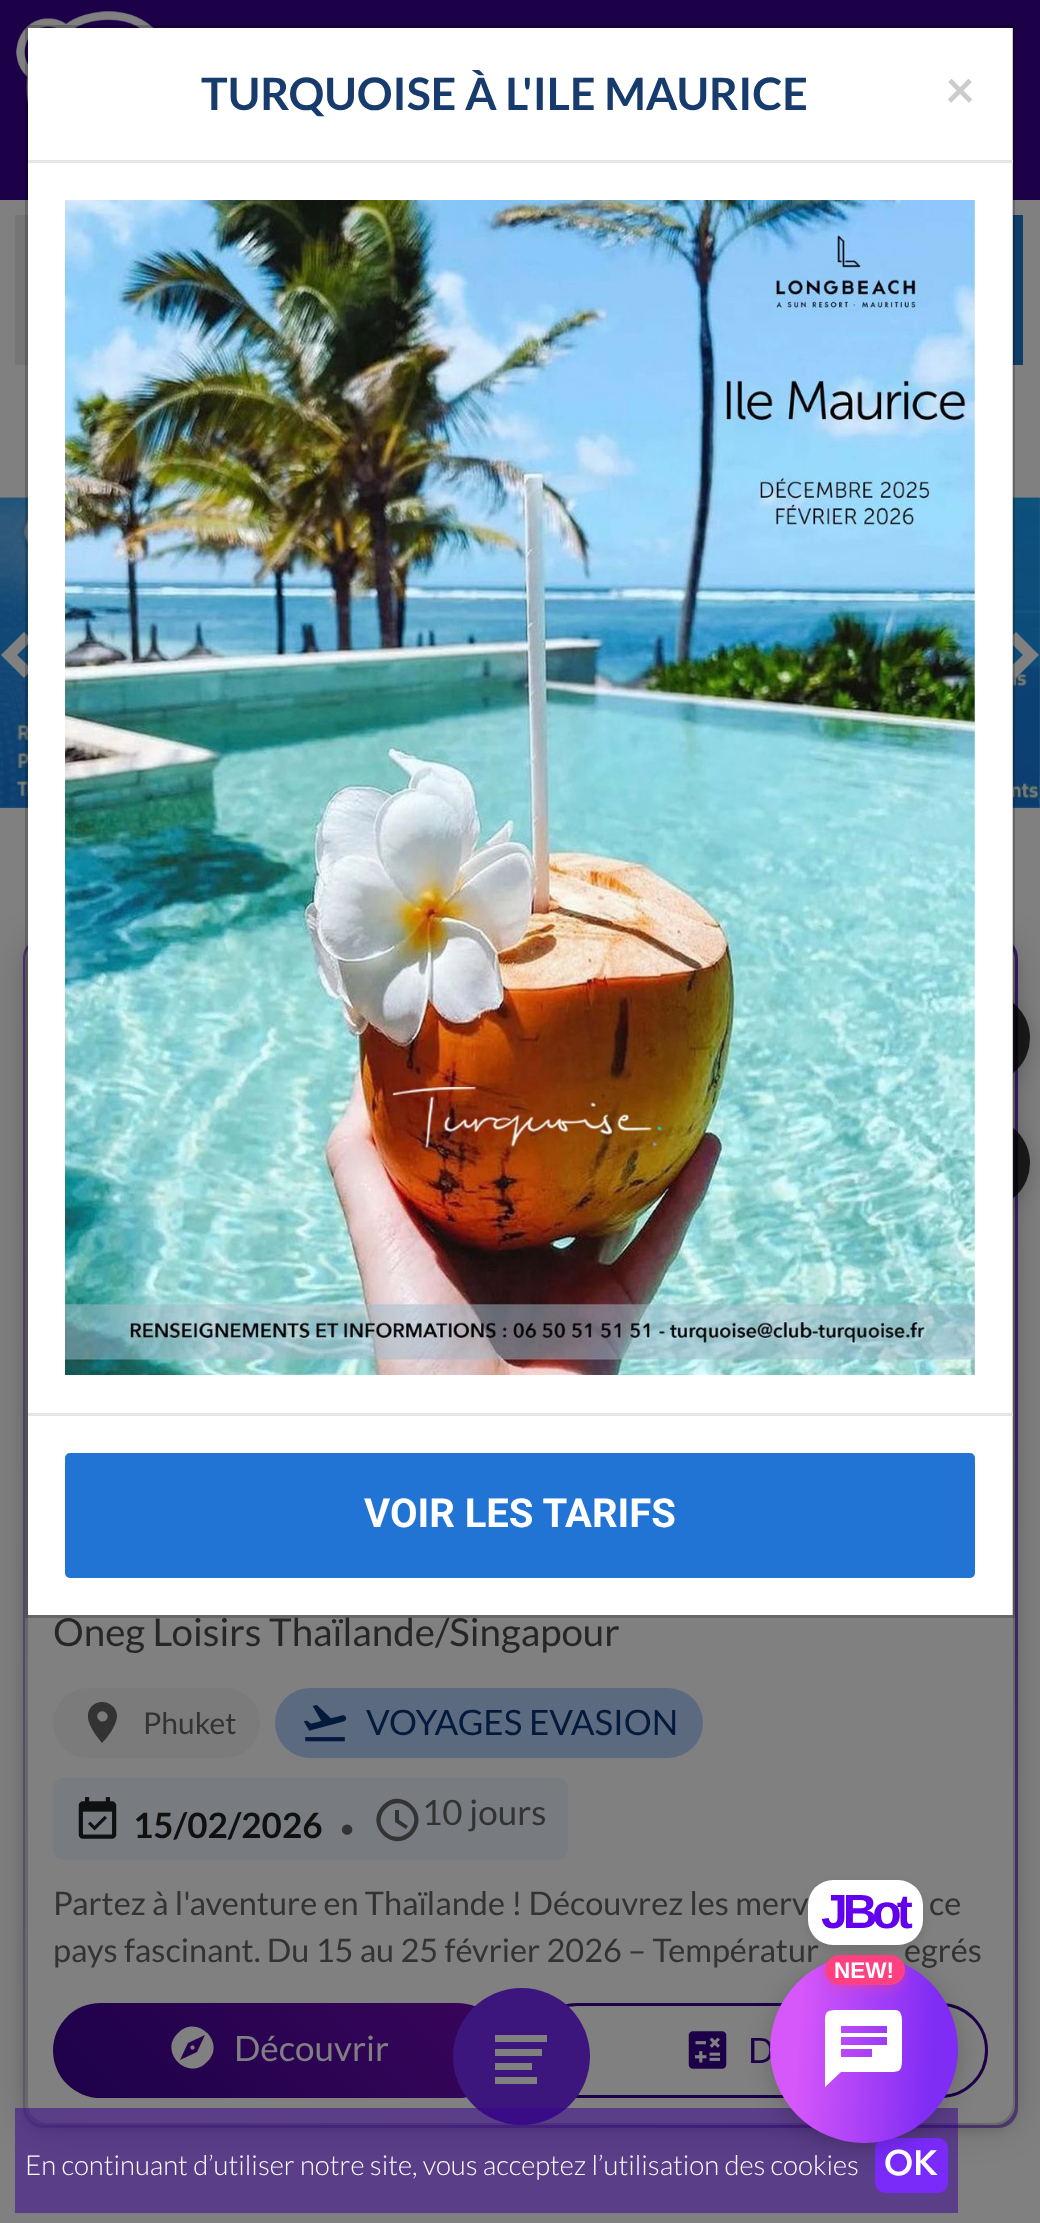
<?xml version="1.0" encoding="UTF-8"?>
<svg xmlns="http://www.w3.org/2000/svg" xmlns:xlink="http://www.w3.org/1999/xlink" width="1040" height="2223">
  <defs>
    <linearGradient id="g1" gradientUnits="userSpaceOnUse" x1="720" y1="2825" x2="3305" y2="240"><stop offset="0" stop-color="#6f687a" /><stop offset="0.33" stop-color="#442378" /><stop offset="0.67" stop-color="#1c0148" /><stop offset="1" stop-color="#808080" /></linearGradient>
    <clipPath id="clip1"><path d="M 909 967 h 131 v 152 h -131 z m 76 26 c 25 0 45 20 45 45 c 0 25 -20 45 -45 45 c -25 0 -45 -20 -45 -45 c 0 -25 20 -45 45 -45 z" clip-rule="evenodd" /></clipPath>
    <clipPath id="clip2"><path d="M 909 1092 h 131 v 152 h -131 z m 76 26 c 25 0 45 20 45 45 c 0 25 -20 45 -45 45 c -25 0 -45 -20 -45 -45 c 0 -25 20 -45 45 -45 z" clip-rule="evenodd" /></clipPath>
    <linearGradient id="g2" gradientUnits="userSpaceOnUse" x1="142" y1="2187" x2="416" y2="1913"><stop offset="0" stop-color="#1c0148" /><stop offset="1" stop-color="#39055c" /></linearGradient>
    <linearGradient id="g3" gradientUnits="userSpaceOnUse" x1="764" y1="2042" x2="963" y2="2055"><stop offset="0.17" stop-color="#d657fa" /><stop offset="0.85" stop-color="#7f2cf4" /></linearGradient>
  </defs>
  <rect width="100%" height="100%" fill="#808080" />
  <rect width="1040" height="200" fill="#1c0148" />
  <image x="16" y="11" width="138" height="93" xlink:href="image1.png" />
  <image x="0" y="497" width="1040" height="311" xlink:href="image3.png" />
  <path d="M 32 640 l -15 15 l 15 14 l -8 9 l -23 -23 l 23 -23 z" fill="#808080" />
  <path d="M 1039 655 l -23 23 l -8 -9 l 15 -14 l -15 -15 l 8 -8 z" fill="#808080" />
  <rect x="23" y="938" width="995" height="1190" rx="20" fill="url(#g1)" />
  <rect x="25" y="945" width="990" height="1185" rx="20" fill="#000000" fill-opacity="0.1" filter="blur(5px)" />
  <rect x="26.5" y="941.5" width="987" height="1182" rx="18.5" fill="#808080" stroke="#757678" stroke-width="3" />
  <rect x="28" y="943" width="985" height="1180" rx="20" fill="#000000" fill-opacity="0.25" filter="blur(19px)" />
  <rect x="28" y="943" width="985" height="1180" rx="20" fill="#808080" />
  <g clip-path="url(#clip1)">
    <rect x="940" y="998" width="90" height="90" rx="45" fill="#000000" fill-opacity="0.15" filter="blur(10px)" />
  </g>
  <circle cx="985" cy="1038" r="45" fill="#000000" fill-opacity="0.8" />
  <g clip-path="url(#clip2)">
    <rect x="940" y="1123" width="90" height="90" rx="45" fill="#000000" fill-opacity="0.15" filter="blur(10px)" />
  </g>
  <circle cx="985" cy="1163" r="45" fill="#000000" fill-opacity="0.8" />
  <rect x="28" y="28" width="985" height="1587" fill="#ffffff" />
  <rect x="15" y="215" width="13" height="150" fill="#757575" />
  <rect x="1013" y="215" width="10" height="150" fill="#103c68" />
  <rect x="53" y="1688" width="207" height="70" rx="35" fill="#7b7b7b" />
  <path d="M 99 1720 c 5 5 12 -3 7 -7 c -5 -5 -12 2 -7 7 z m -7 -14 c 9 -9 26 -2 25 11 c -1 9 -9 20 -15 26 c -7 -9 -21 -26 -10 -37 z" fill="#333333" />
  <rect x="275" y="1688" width="428" height="70" rx="35" fill="#5b6a7f" />
  <image x="303" y="1705" width="44" height="37" xlink:href="image4.png" />
  <rect x="53" y="1778" width="515" height="82" rx="10" fill="#787c80" />
  <image x="78" y="1797" width="39" height="42" xlink:href="image5.png" />
  <path d="M 399 1810 v 10 l 9 6 l -2 3 l -11 -7 v -12 z m -13 22 c 15 15 39 -8 23 -24 c -15 -15 -39 8 -23 24 z m -3 -27 c 19 -19 49 10 29 30 c -19 19 -49 -10 -29 -30 z" fill="#333333" />
  <rect x="53" y="2003" width="452" height="95" rx="47.5" fill="url(#g2)" />
  <path d="M 197 2052 l 8 -17 l -17 8 l -8 17 z m -19 -19 c 19 -20 49 10 29 29 c -19 20 -49 -10 -29 -29 z m 13 13 c 2 -2 5 1 3 3 c -2 2 -5 -1 -3 -3 z" fill="#808080" />
  <rect x="531.5" y="2004.5" width="455" height="92" rx="46" fill="none" stroke="#1c0148" stroke-width="3" />
  <image x="688" y="2031" width="39" height="38" xlink:href="image6.png" />
  <circle cx="521.5" cy="2056.5" r="68.5" fill="#3d167d" />
  <path d="M 495 2070 v -7 h 37 v 7 z m 0 -14 v -7 h 47 v 7 z m 0 -14 v -7 h 52 v 7 z m 0 42 v -7 h 42 v 7 z" fill="#808080" />
  <rect x="15" y="2108" width="943" height="105" fill="#38028f" fill-opacity="0.52" />
  <rect x="875" y="2138" width="73" height="55" rx="10" fill="#7a2bfa" />
  <rect x="770" y="1960" width="188" height="188" rx="94" fill="#000000" fill-opacity="0.2" filter="blur(12.5px)" />
  <text x="53" y="1646" style="font-family: Lato; font-size: 38.5px; fill: #262626">Oneg Loisirs Thaïlande/Singapour</text>
  <rect x="26.5" y="26.5" width="987" height="1590" fill="none" stroke="#000000" stroke-opacity="0.2" stroke-width="3" />
  <image x="65" y="200" width="910" height="1175" xlink:href="image2.png" />
  <text x="945" y="108" style="font-family: Lato; font-size: 52px; font-weight: bold; fill: #cccccc">×</text>
  <rect x="65" y="1453" width="910" height="125" rx="5" fill="#2174d4" />
  <text x="364" y="1527" style="font-family: Roboto; font-size: 40px; font-weight: bold; fill: #ffffff">VOIR LES TARIFS</text>
  <text x="201" y="110" style="font-family: Lato; font-size: 44.75px; font-weight: bold; fill: #173b6d">TURQUOISE À L'ILE MAURICE</text>
  <rect x="28" y="1413" width="985" height="3" fill="#e5e5e5" />
  <rect x="28" y="160" width="985" height="3" fill="#e5e5e5" />
  <text x="143" y="1734" style="font-family: Lato; font-size: 30px; fill: #333333">Phuket</text>
  <text x="366" y="1735" style="font-family: Lato; font-size: 35px; fill: #031a3c">VOYAGES EVASION</text>
  <text x="133" y="1838" style="font-family: Lato; font-size: 35px; font-weight: bold; fill: #101011">15/02/2026</text>
  <text x="339" y="1838" style="font-family: Lato; font-size: 28px; fill: #333333">•</text>
  <text x="422" y="1825" style="font-family: Lato; font-size: 35px; fill: #333333">10 jours</text>
  <text x="53" y="1915" style="font-family: Lato; font-size: 32.5px; fill: #333333">Partez à l'aventure en Thaïlande ! Découvrez les merv</text>
  <text x="929" y="1915" style="font-family: Lato; font-size: 32.5px; fill: #333333">ce</text>
  <text x="53" y="1962" style="font-family: Lato; font-size: 32.5px; fill: #333333">pays fascinant. Du 15 au 25 février 2026 – Températur</text>
  <text x="904" y="1962" style="font-family: Lato; font-size: 32.5px; fill: #333333">egrés</text>
  <text x="234" y="2061" style="font-family: Lato; font-size: 35px; fill: #808080">Découvrir</text>
  <text x="748" y="2063" style="font-family: Lato; font-size: 35px; fill: #1c0148">D</text>
  <circle cx="864" cy="2049" r="94" fill="url(#g3)" />
  <rect x="808" y="1885" width="115" height="65" rx="25" fill="#000000" fill-opacity="0.1" filter="blur(5px)" />
  <rect x="808" y="1880" width="115" height="65" rx="25" fill="#ffffff" />
  <text x="821" y="1928" style="font-family: Liberation Sans; font-size: 48px; font-weight: bold; letter-spacing: -5px; fill: #6200ee">JBot</text>
  <rect x="825" y="1960" width="80" height="30" rx="15" fill="#ff4081" fill-opacity="0.3" filter="blur(5px)" />
  <rect x="825" y="1955" width="80" height="30" rx="15" fill="#ff4081" />
  <text x="834" y="1978" style="font-family: Liberation Sans; font-size: 22.5px; font-weight: bold; fill: #ffffff">NEW!</text>
  <path d="M 887 2033 v -7 h -46 v 7 z m -15 24 v -8 h -31 v 8 z m -31 -20 v 8 h 46 v -8 z m 54 -27 c 8 0 7 10 7 16 v 30 c 0 16 -1 16 -16 16 h -45 l -16 15 v -58 c 0 -19 -1 -19 18 -19 z" fill="#ffffff" />
  <text x="25" y="2175" style="font-family: Lato; font-size: 27.5px; font-weight: 300; fill: #ffffff">En continuant d’utiliser notre site, vous acceptez l’utilisation des cookies</text>
  <text x="884" y="2175" style="font-family: Avenir; font-size: 35px; font-weight: 900; fill: #ffffff">OK</text>
</svg>
